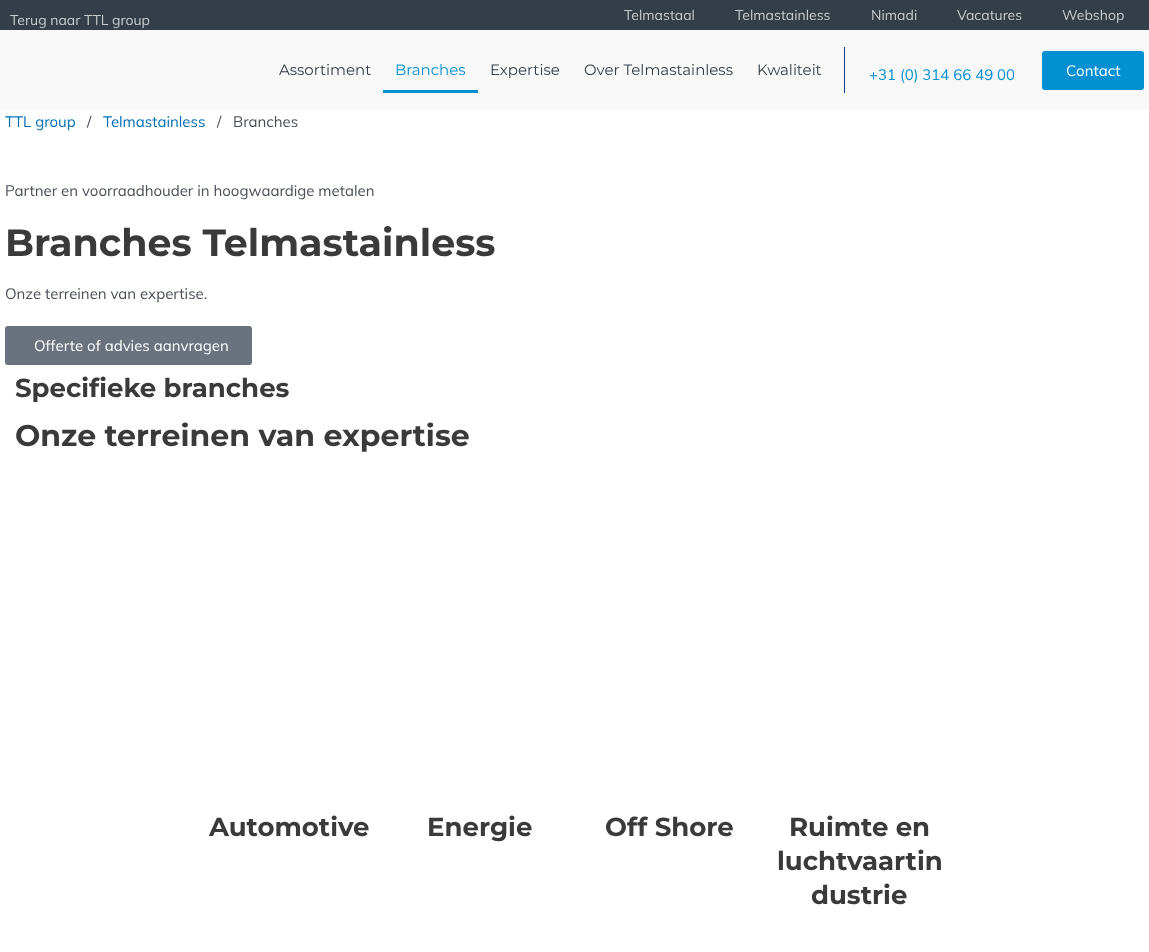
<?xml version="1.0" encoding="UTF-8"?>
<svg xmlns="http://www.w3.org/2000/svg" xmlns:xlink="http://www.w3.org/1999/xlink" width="1149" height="952">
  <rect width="100%" height="100%" fill="#ffffff" />
  <rect width="1149" height="30" fill="#333e48" />
  <rect y="30" width="1149" height="80" fill="#f8f8f8" />
  <rect x="383" y="90" width="95" height="3" fill="#0290d2" />
  <rect x="844" y="47" width="1" height="46" fill="#093d83" />
  <rect x="1042" y="51" width="102" height="39" rx="3" fill="#0290d2" />
  <rect x="5" y="326" width="247" height="39" rx="3" fill="#69727d" />
  <text x="10" y="25" style="font-family: Muli; font-size: 14px; fill: #c8cbce">Terug naar TTL group</text>
  <text x="624" y="20" style="font-family: Muli; font-size: 14px; fill: #c8cbce">Telmastaal</text>
  <text x="735" y="20" style="font-family: Muli; font-size: 14px; fill: #c8cbce">Telmastainless</text>
  <text x="871" y="20" style="font-family: Muli; font-size: 14px; fill: #c8cbce">Nimadi</text>
  <text x="957" y="20" style="font-family: Muli; font-size: 14px; fill: #c8cbce">Vacatures</text>
  <text x="1062" y="20" style="font-family: Muli; font-size: 14px; fill: #c8cbce">Webshop</text>
  <text x="279" y="75" style="font-family: Montserrat; font-size: 15px; fill: #333e48">Assortiment</text>
  <text x="395" y="75" style="font-family: Montserrat; font-size: 15px; fill: #0290d2">Branches</text>
  <text x="490" y="75" style="font-family: Montserrat; font-size: 15px; fill: #333e48">Expertise</text>
  <text x="584" y="75" style="font-family: Montserrat; font-size: 15px; fill: #333e48">Over Telmastainless</text>
  <text x="757" y="75" style="font-family: Montserrat; font-size: 15px; fill: #333e48">Kwaliteit</text>
  <text x="869" y="80" style="font-family: Muli; font-size: 15px; fill: #0290d2">+31 (0) 314 66 49 00</text>
  <text x="1066" y="76" style="font-family: Muli; font-size: 15px; fill: #ffffff">Contact</text>
  <text x="5" y="127" style="font-family: Muli; font-size: 15px; fill: #0170b9">TTL group</text>
  <text x="87" y="127" style="font-family: Muli; font-size: 15px; fill: #4b4f58">/</text>
  <text x="103" y="127" style="font-family: Muli; font-size: 15px; fill: #0170b9">Telmastainless</text>
  <text x="217" y="127" style="font-family: Muli; font-size: 15px; fill: #4b4f58">/</text>
  <text x="233" y="127" style="font-family: Muli; font-size: 15px; fill: #4b4f58">Branches</text>
  <text x="5" y="196" style="font-family: Muli; font-size: 15px; fill: #4b4f58">Partner en voorraadhouder in hoogwaardige metalen</text>
  <text x="5" y="256" style="font-family: Montserrat; font-size: 38px; font-weight: bold; fill: #3a3a3a">Branches Telmastainless</text>
  <text x="5" y="299" style="font-family: Muli; font-size: 15px; fill: #4b4f58">Onze terreinen van expertise.</text>
  <text x="34" y="351" style="font-family: Muli; font-size: 15px; fill: #ffffff">Offerte of advies aanvragen</text>
  <text x="15" y="397" style="font-family: Montserrat; font-size: 26px; font-weight: bold; fill: #3a3a3a">Specifieke branches</text>
  <text x="15" y="446" style="font-family: Montserrat; font-size: 30px; font-weight: bold; fill: #3a3a3a">Onze terreinen van expertise</text>
  <text x="209" y="836" style="font-family: Montserrat; font-size: 26px; font-weight: bold; fill: #3a3a3a">Automotive</text>
  <text x="427" y="836" style="font-family: Montserrat; font-size: 26px; font-weight: bold; fill: #3a3a3a">Energie</text>
  <text x="605" y="836" style="font-family: Montserrat; font-size: 26px; font-weight: bold; fill: #3a3a3a">Off Shore</text>
  <text x="789" y="836" style="font-family: Montserrat; font-size: 26px; font-weight: bold; fill: #3a3a3a">Ruimte en</text>
  <text x="777" y="870" style="font-family: Montserrat; font-size: 26px; font-weight: bold; fill: #3a3a3a">luchtvaartin</text>
  <text x="811" y="904" style="font-family: Montserrat; font-size: 26px; font-weight: bold; fill: #3a3a3a">dustrie</text>
</svg>
